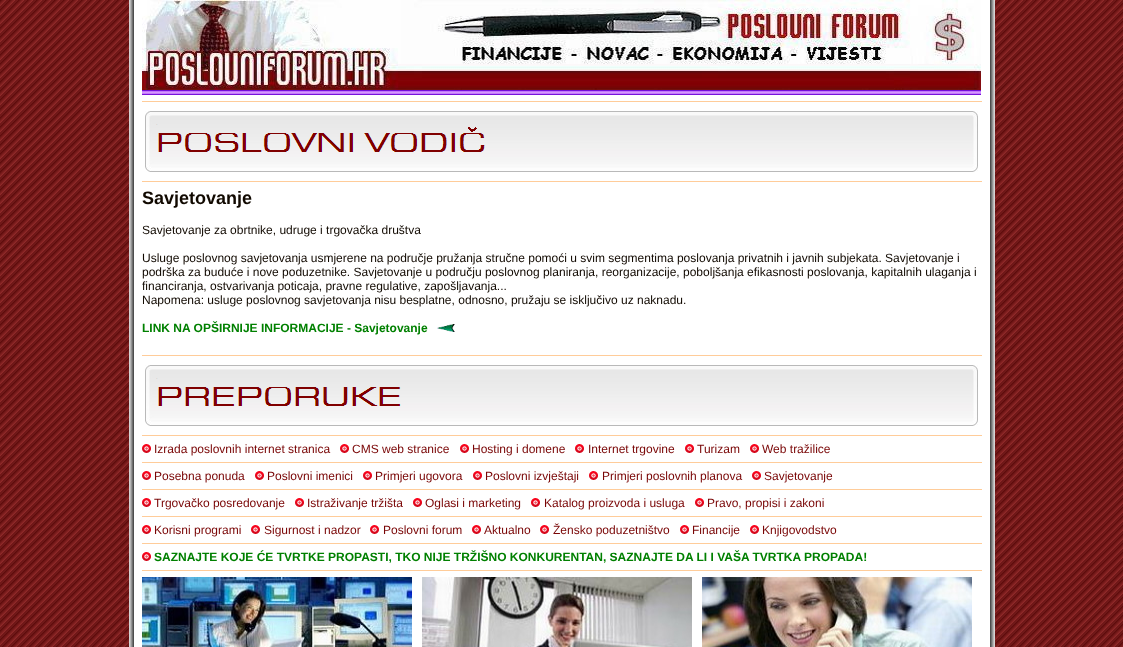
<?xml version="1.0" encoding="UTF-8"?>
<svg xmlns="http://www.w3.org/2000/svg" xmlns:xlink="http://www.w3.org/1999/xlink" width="1123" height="647">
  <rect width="100%" height="100%" fill="#ffffff" />
  <image x="0" y="0" width="1123" height="647" xlink:href="image1.png" />
  <rect x="134" width="856" height="647" fill="#ffffff" />
  <image x="129" y="0" width="5" height="647" xlink:href="image2.png" />
  <image x="142" y="0" width="839" height="90" xlink:href="image3.png" />
  <image x="142" y="90" width="839" height="5" xlink:href="image4.png" />
  <rect x="142" y="101" width="840" height="1" fill="#ffcc99" />
  <image x="145" y="111" width="833" height="61" xlink:href="image5.png" />
  <rect x="142" y="181" width="840" height="1" fill="#ffcc99" />
  <image x="437" y="324" width="18" height="8" xlink:href="image6.png" />
  <rect x="142" y="355" width="840" height="1" fill="#ffcc99" />
  <image x="145" y="365" width="833" height="61" xlink:href="image7.png" />
  <rect x="142" y="435" width="840" height="1" fill="#ffcc99" />
  <image x="142" y="444" width="9" height="9" xlink:href="image8.png" />
  <image x="340" y="444" width="9" height="9" xlink:href="image8.png" />
  <image x="460" y="444" width="9" height="9" xlink:href="image8.png" />
  <image x="575" y="444" width="9" height="9" xlink:href="image8.png" />
  <image x="685" y="444" width="9" height="9" xlink:href="image8.png" />
  <image x="750" y="444" width="9" height="9" xlink:href="image8.png" />
  <rect x="142" y="462" width="840" height="1" fill="#ffcc99" />
  <image x="142" y="471" width="9" height="9" xlink:href="image8.png" />
  <image x="255" y="471" width="9" height="9" xlink:href="image8.png" />
  <image x="363" y="471" width="9" height="9" xlink:href="image8.png" />
  <image x="473" y="471" width="9" height="9" xlink:href="image8.png" />
  <image x="589" y="471" width="9" height="9" xlink:href="image8.png" />
  <image x="752" y="471" width="9" height="9" xlink:href="image8.png" />
  <rect x="142" y="489" width="840" height="1" fill="#ffcc99" />
  <image x="142" y="498" width="9" height="9" xlink:href="image8.png" />
  <image x="295" y="498" width="9" height="9" xlink:href="image8.png" />
  <image x="413" y="498" width="9" height="9" xlink:href="image8.png" />
  <image x="531" y="498" width="9" height="9" xlink:href="image8.png" />
  <image x="695" y="498" width="9" height="9" xlink:href="image8.png" />
  <rect x="142" y="516" width="840" height="1" fill="#ffcc99" />
  <image x="142" y="525" width="9" height="9" xlink:href="image8.png" />
  <image x="251" y="525" width="9" height="9" xlink:href="image8.png" />
  <image x="370" y="525" width="9" height="9" xlink:href="image8.png" />
  <image x="472" y="525" width="9" height="9" xlink:href="image8.png" />
  <image x="540" y="525" width="9" height="9" xlink:href="image8.png" />
  <image x="680" y="525" width="9" height="9" xlink:href="image8.png" />
  <image x="750" y="525" width="9" height="9" xlink:href="image8.png" />
  <rect x="142" y="543" width="840" height="1" fill="#ffcc99" />
  <image x="142" y="552" width="9" height="9" xlink:href="image8.png" />
  <rect x="142" y="570" width="840" height="1" fill="#ffcc99" />
  <image x="142" y="577" width="270" height="70" xlink:href="image9.png" />
  <image x="422" y="577" width="270" height="70" xlink:href="image10.png" />
  <image x="702" y="577" width="270" height="70" xlink:href="image11.png" />
  <image x="990" y="0" width="5" height="647" xlink:href="image12.png" />
  <text x="142" y="204" style="font-family: Liberation Sans; font-size: 18px; font-weight: bold; fill: #110900">Savjetovanje</text>
  <text x="142" y="234" style="font-family: Liberation Sans; font-size: 12px; fill: #110900">Savjetovanje za obrtnike, udruge i trgovačka društva</text>
  <text x="142" y="262" style="font-family: Liberation Sans; font-size: 12px; fill: #110900">Usluge poslovnog savjetovanja usmjerene na područje pružanja stručne pomoći u svim segmentima poslovanja privatnih i javnih subjekata. Savjetovanje i</text>
  <text x="142" y="276" style="font-family: Liberation Sans; font-size: 12px; fill: #110900">podrška za buduće i nove poduzetnike. Savjetovanje u području poslovnog planiranja, reorganizacije, poboljšanja efikasnosti poslovanja, kapitalnih ulaganja i</text>
  <text x="142" y="290" style="font-family: Liberation Sans; font-size: 12px; fill: #110900">financiranja, ostvarivanja poticaja, pravne regulative, zapošljavanja...</text>
  <text x="142" y="304" style="font-family: Liberation Sans; font-size: 12px; fill: #110900">Napomena: usluge poslovnog savjetovanja nisu besplatne, odnosno, pružaju se isključivo uz naknadu.</text>
  <text x="142" y="332" style="font-family: Liberation Sans; font-size: 12px; font-weight: bold; fill: #008000">LINK NA OPŠIRNIJE INFORMACIJE - Savjetovanje</text>
  <text x="154" y="453" style="font-family: Liberation Sans; font-size: 12px; fill: #790505">Izrada poslovnih internet stranica</text>
  <text x="352" y="453" style="font-family: Liberation Sans; font-size: 12px; fill: #790505">CMS web stranice</text>
  <text x="472" y="453" style="font-family: Liberation Sans; font-size: 12px; fill: #790505">Hosting i domene</text>
  <text x="588" y="453" style="font-family: Liberation Sans; font-size: 12px; fill: #790505">Internet trgovine</text>
  <text x="697" y="453" style="font-family: Liberation Sans; font-size: 12px; fill: #790505">Turizam</text>
  <text x="762" y="453" style="font-family: Liberation Sans; font-size: 12px; fill: #790505">Web tražilice</text>
  <text x="154" y="480" style="font-family: Liberation Sans; font-size: 12px; fill: #790505">Posebna ponuda</text>
  <text x="267" y="480" style="font-family: Liberation Sans; font-size: 12px; fill: #790505">Poslovni imenici</text>
  <text x="375" y="480" style="font-family: Liberation Sans; font-size: 12px; fill: #790505">Primjeri ugovora</text>
  <text x="485" y="480" style="font-family: Liberation Sans; font-size: 12px; fill: #790505">Poslovni izvještaji</text>
  <text x="602" y="480" style="font-family: Liberation Sans; font-size: 12px; fill: #790505">Primjeri poslovnih planova</text>
  <text x="764" y="480" style="font-family: Liberation Sans; font-size: 12px; fill: #790505">Savjetovanje</text>
  <text x="154" y="507" style="font-family: Liberation Sans; font-size: 12px; fill: #790505">Trgovačko posredovanje</text>
  <text x="307" y="507" style="font-family: Liberation Sans; font-size: 12px; fill: #790505">Istraživanje tržišta</text>
  <text x="425" y="507" style="font-family: Liberation Sans; font-size: 12px; fill: #790505">Oglasi i marketing</text>
  <text x="544" y="507" style="font-family: Liberation Sans; font-size: 12px; fill: #790505">Katalog proizvoda i usluga</text>
  <text x="707" y="507" style="font-family: Liberation Sans; font-size: 12px; fill: #790505">Pravo, propisi i zakoni</text>
  <text x="154" y="534" style="font-family: Liberation Sans; font-size: 12px; fill: #790505">Korisni programi</text>
  <text x="264" y="534" style="font-family: Liberation Sans; font-size: 12px; fill: #790505">Sigurnost i nadzor</text>
  <text x="383" y="534" style="font-family: Liberation Sans; font-size: 12px; fill: #790505">Poslovni forum</text>
  <text x="484" y="534" style="font-family: Liberation Sans; font-size: 12px; fill: #790505">Aktualno</text>
  <text x="553" y="534" style="font-family: Liberation Sans; font-size: 12px; fill: #790505">Žensko poduzetništvo</text>
  <text x="692" y="534" style="font-family: Liberation Sans; font-size: 12px; fill: #790505">Financije</text>
  <text x="762" y="534" style="font-family: Liberation Sans; font-size: 12px; fill: #790505">Knjigovodstvo</text>
  <text x="154" y="561" style="font-family: Liberation Sans; font-size: 12px; font-weight: bold; fill: #008000">SAZNAJTE KOJE ĆE TVRTKE PROPASTI, TKO NIJE TRŽIŠNO KONKURENTAN, SAZNAJTE DA LI I VAŠA TVRTKA PROPADA!</text>
</svg>
